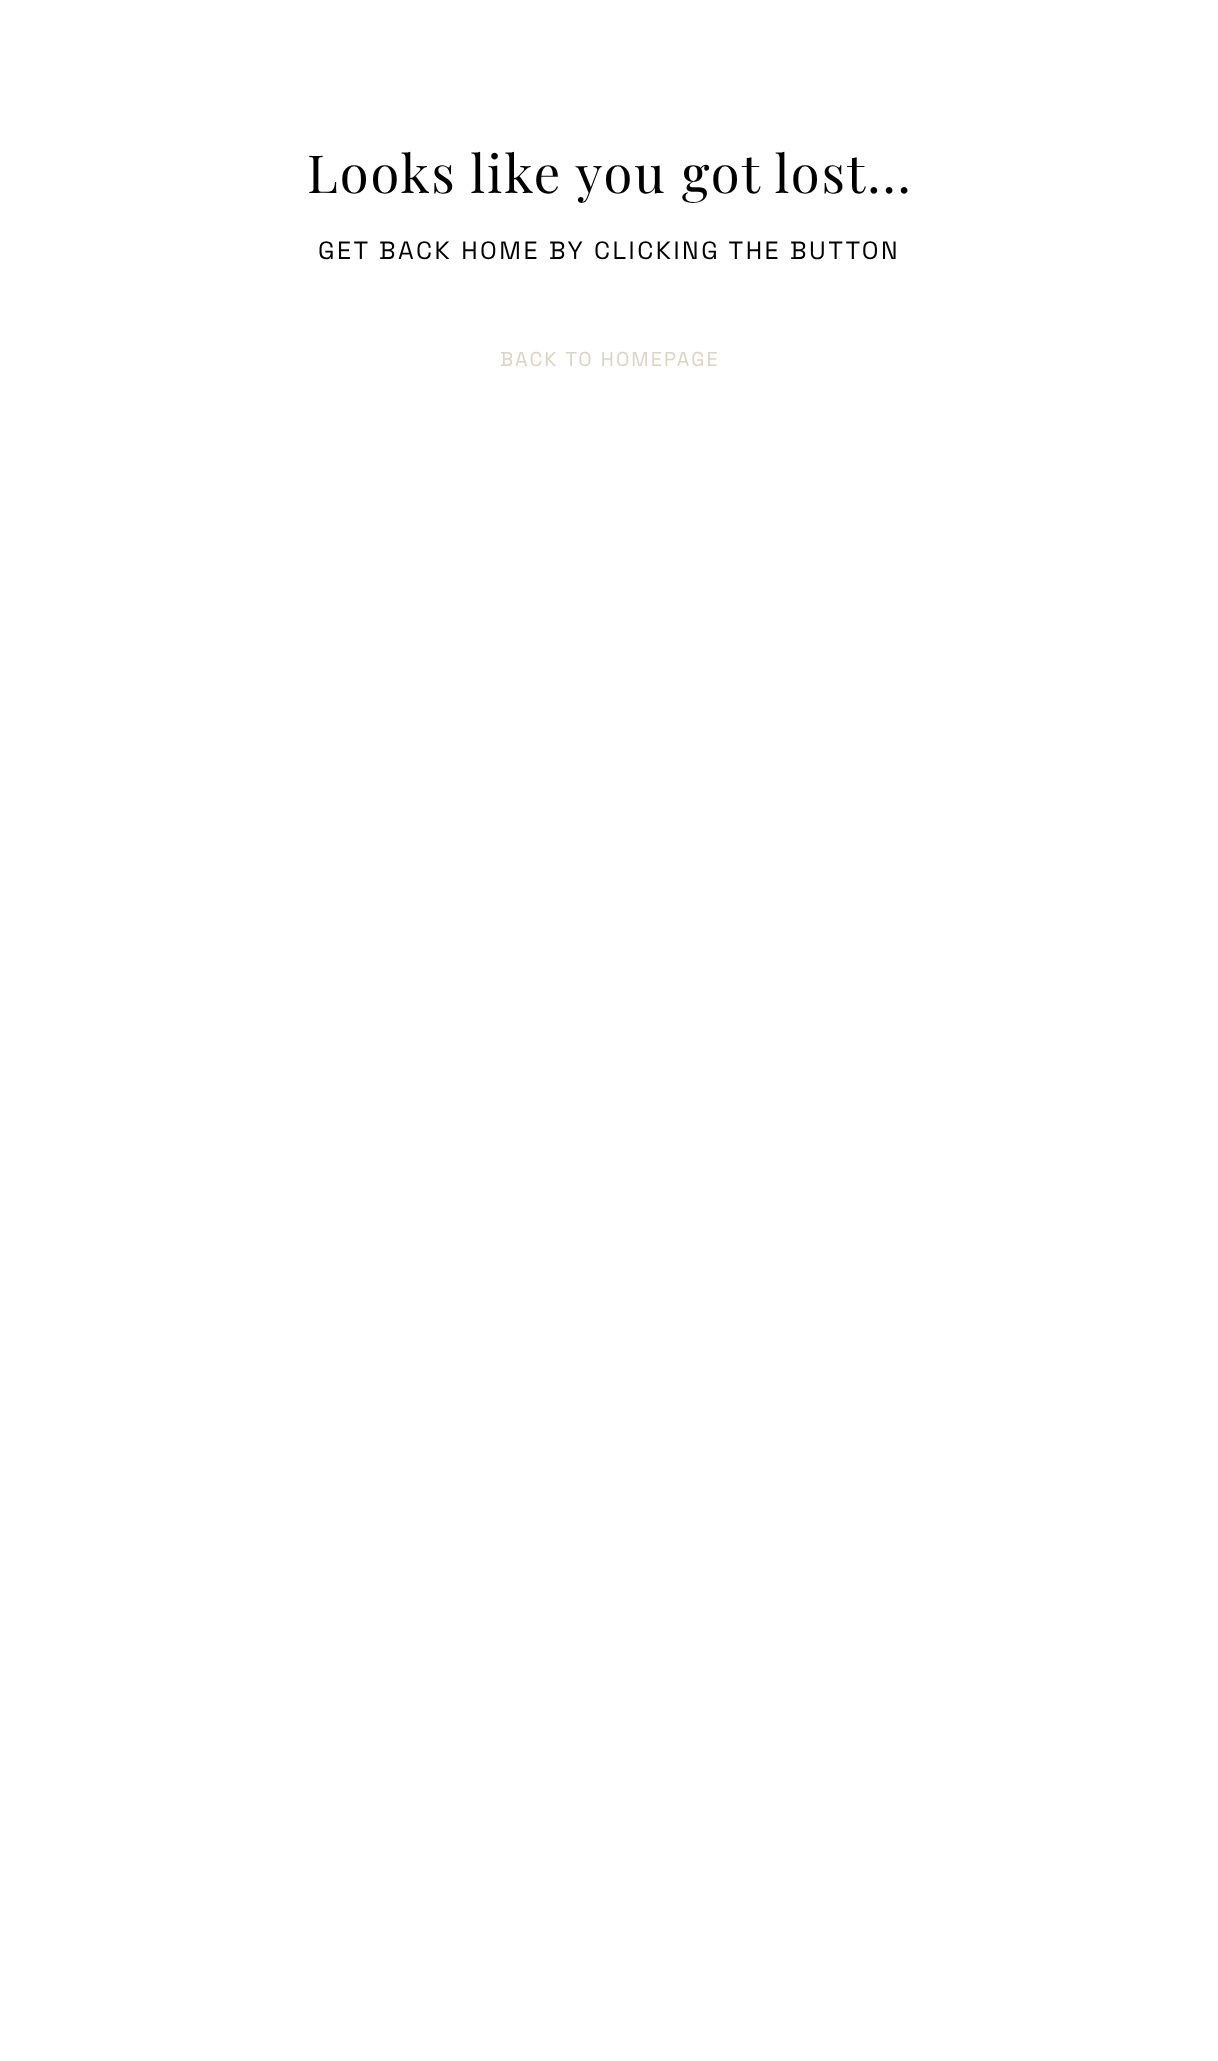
<?xml version="1.0" encoding="UTF-8"?>
<svg xmlns="http://www.w3.org/2000/svg" xmlns:xlink="http://www.w3.org/1999/xlink" width="1218" height="2061">
  <rect width="100%" height="100%" fill="#ffffff" />
  <text x="307" y="193" style="font-family: Playfair Display; font-size: 52.5px; letter-spacing: 1.9px; fill: #000000">Looks like you got lost...</text>
  <text x="318" y="259" style="font-family: Space Grotesk; font-size: 25px; letter-spacing: 2.5px; fill: #000000">GET BACK HOME BY CLICKING THE BUTTON</text>
  <text x="500" y="366" style="font-family: Space Grotesk; font-size: 20px; letter-spacing: 2px; fill: #ded2c2">BACK TO HOMEPAGE</text>
</svg>
